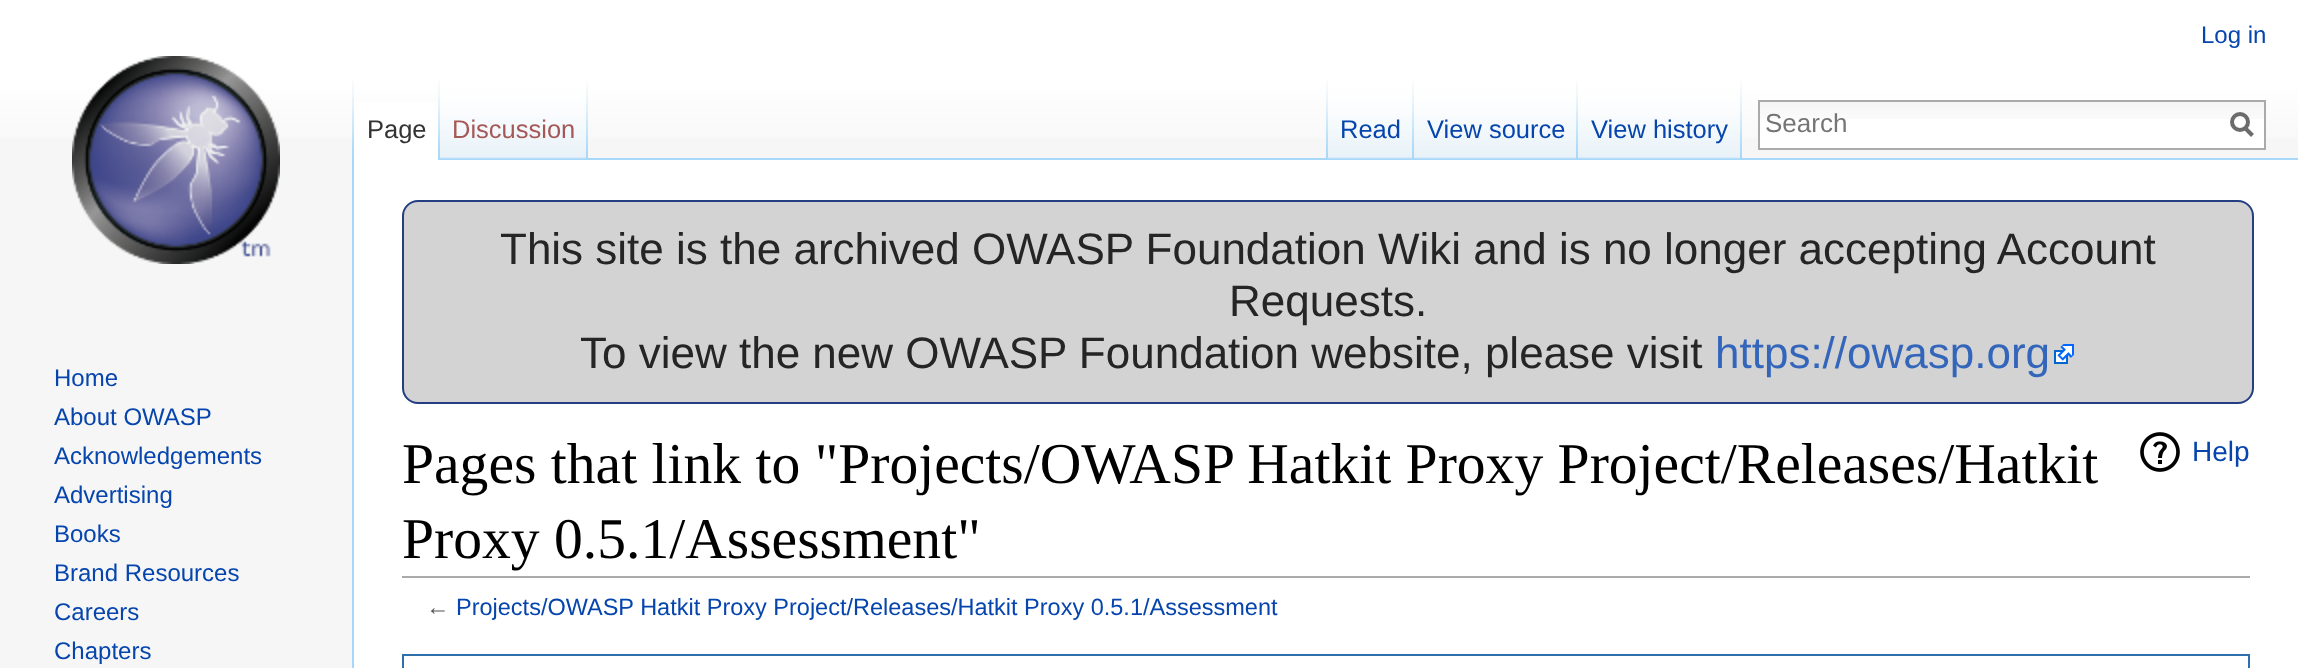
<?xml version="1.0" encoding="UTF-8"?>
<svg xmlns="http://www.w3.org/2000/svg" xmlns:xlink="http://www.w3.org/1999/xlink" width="2298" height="668">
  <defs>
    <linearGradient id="g1" gradientUnits="userSpaceOnUse" x1="1149" y1="0" x2="1149" y2="160"><stop offset="0.5" stop-color="#ffffff" /><stop offset="1" stop-color="#f6f6f6" /></linearGradient>
  </defs>
  <rect width="100%" height="100%" fill="#f6f6f6" />
  <rect width="2298" height="138" fill="url(#g1)" />
  <image x="352" y="80" width="2" height="78" xlink:href="image1.png" />
  <rect x="354" y="102" width="86" height="58" fill="#ffffff" />
  <image x="438" y="81" width="2" height="79" xlink:href="image2.png" />
  <image x="440" y="80" width="148" height="80" xlink:href="image3.png" />
  <image x="586" y="81" width="2" height="78" xlink:href="image4.png" />
  <image x="1326" y="80" width="2" height="78" xlink:href="image1.png" />
  <rect x="588" y="158" width="1710" height="2" fill="#a7d7f9" />
  <image x="1328" y="80" width="86" height="80" xlink:href="image5.png" />
  <image x="1412" y="81" width="2" height="78" xlink:href="image4.png" />
  <image x="1414" y="80" width="164" height="80" xlink:href="image6.png" />
  <image x="1576" y="81" width="2" height="78" xlink:href="image4.png" />
  <image x="1578" y="80" width="164" height="80" xlink:href="image6.png" />
  <image x="1740" y="81" width="2" height="78" xlink:href="image4.png" />
  <rect x="1760" y="119" width="504" height="29" fill="#ffffff" />
  <image x="1760" y="102" width="504" height="17" xlink:href="image7.png" />
  <rect x="1759" y="101" width="506" height="48" fill="none" stroke="#aaaaaa" stroke-width="2" />
  <path d="M 2252.5 135.5 l -8 -8" fill="none" stroke="#6c6c6c" stroke-width="4" />
  <circle cx="2240" cy="122" r="8" fill="none" stroke="#6c6c6c" stroke-width="4" />
  <image x="72" y="56" width="208" height="208" xlink:href="image8.png" />
  <rect x="354" y="160" width="1944" height="508" fill="#ffffff" />
  <rect x="352" y="158" width="2" height="510" fill="#a7d7f9" />
  <rect x="403" y="201" width="1850" height="202" rx="15" fill="#d3d3d3" stroke="#233e81" stroke-width="2" />
  <image x="2054" y="344" width="20" height="20" xlink:href="image9.png" />
  <rect x="402" y="576" width="1848" height="2" fill="#aaaaaa" />
  <image x="2140" y="432" width="40" height="40" xlink:href="image10.png" />
  <rect x="403" y="655" width="1846" height="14" fill="none" stroke="#2f6fab" stroke-width="2" />
  <text x="2201" y="43" style="font-family: Liberation Sans; font-size: 24px; fill: #0645ad">Log in</text>
  <text x="367" y="138" style="font-family: Liberation Sans; font-size: 25.5px; fill: #333333">Page</text>
  <text x="452" y="138" style="font-family: Liberation Sans; font-size: 25.5px; fill: #a55858">Discussion</text>
  <text x="1340" y="138" style="font-family: Liberation Sans; font-size: 25.5px; fill: #0645ad">Read</text>
  <text x="1427" y="138" style="font-family: Liberation Sans; font-size: 25.5px; fill: #0645ad">View source</text>
  <text x="1591" y="138" style="font-family: Liberation Sans; font-size: 25.5px; fill: #0645ad">View history</text>
  <text x="1765" y="132" style="font-family: Liberation Sans; font-size: 26px; fill: #757575">Search</text>
  <text x="54" y="386" style="font-family: Liberation Sans; font-size: 24px; fill: #0645ad">Home</text>
  <text x="54" y="425" style="font-family: Liberation Sans; font-size: 24px; fill: #0645ad">About OWASP</text>
  <text x="54" y="464" style="font-family: Liberation Sans; font-size: 24px; fill: #0645ad">Acknowledgements</text>
  <text x="54" y="503" style="font-family: Liberation Sans; font-size: 24px; fill: #0645ad">Advertising</text>
  <text x="54" y="542" style="font-family: Liberation Sans; font-size: 24px; fill: #0645ad">Books</text>
  <text x="54" y="581" style="font-family: Liberation Sans; font-size: 24px; fill: #0645ad">Brand Resources</text>
  <text x="54" y="620" style="font-family: Liberation Sans; font-size: 24px; fill: #0645ad">Careers</text>
  <text x="54" y="659" style="font-family: Liberation Sans; font-size: 24px; fill: #0645ad">Chapters</text>
  <text x="500" y="264" style="font-family: Liberation Sans; font-size: 44px; fill: #252525">This site is the archived OWASP Foundation Wiki and is no longer accepting Account</text>
  <text x="1229" y="316" style="font-family: Liberation Sans; font-size: 44px; fill: #252525">Requests.</text>
  <text x="580" y="368" style="font-family: Liberation Sans; font-size: 44px; fill: #252525">To view the new OWASP Foundation website, please visit</text>
  <text x="1715" y="368" style="font-family: Liberation Sans; font-size: 44px; fill: #3366bb">https://owasp.org</text>
  <text x="402" y="483" style="font-family: Liberation Serif; font-size: 57.6px; fill: #000000">Pages that link to "Projects/OWASP Hatkit Proxy Project/Releases/Hatkit</text>
  <text x="402" y="558" style="font-family: Liberation Serif; font-size: 57.6px; fill: #000000">Proxy 0.5.1/Assessment"</text>
  <text x="2192" y="461" style="font-family: Liberation Sans; font-size: 28px; fill: #0645ad">Help</text>
  <text x="426" y="615" style="font-family: Liberation Sans; font-size: 23.5px; fill: #545454">←</text>
  <text x="456" y="615" style="font-family: Liberation Sans; font-size: 23.5px; fill: #0645ad">Projects/OWASP Hatkit Proxy Project/Releases/Hatkit Proxy 0.5.1/Assessment</text>
</svg>
